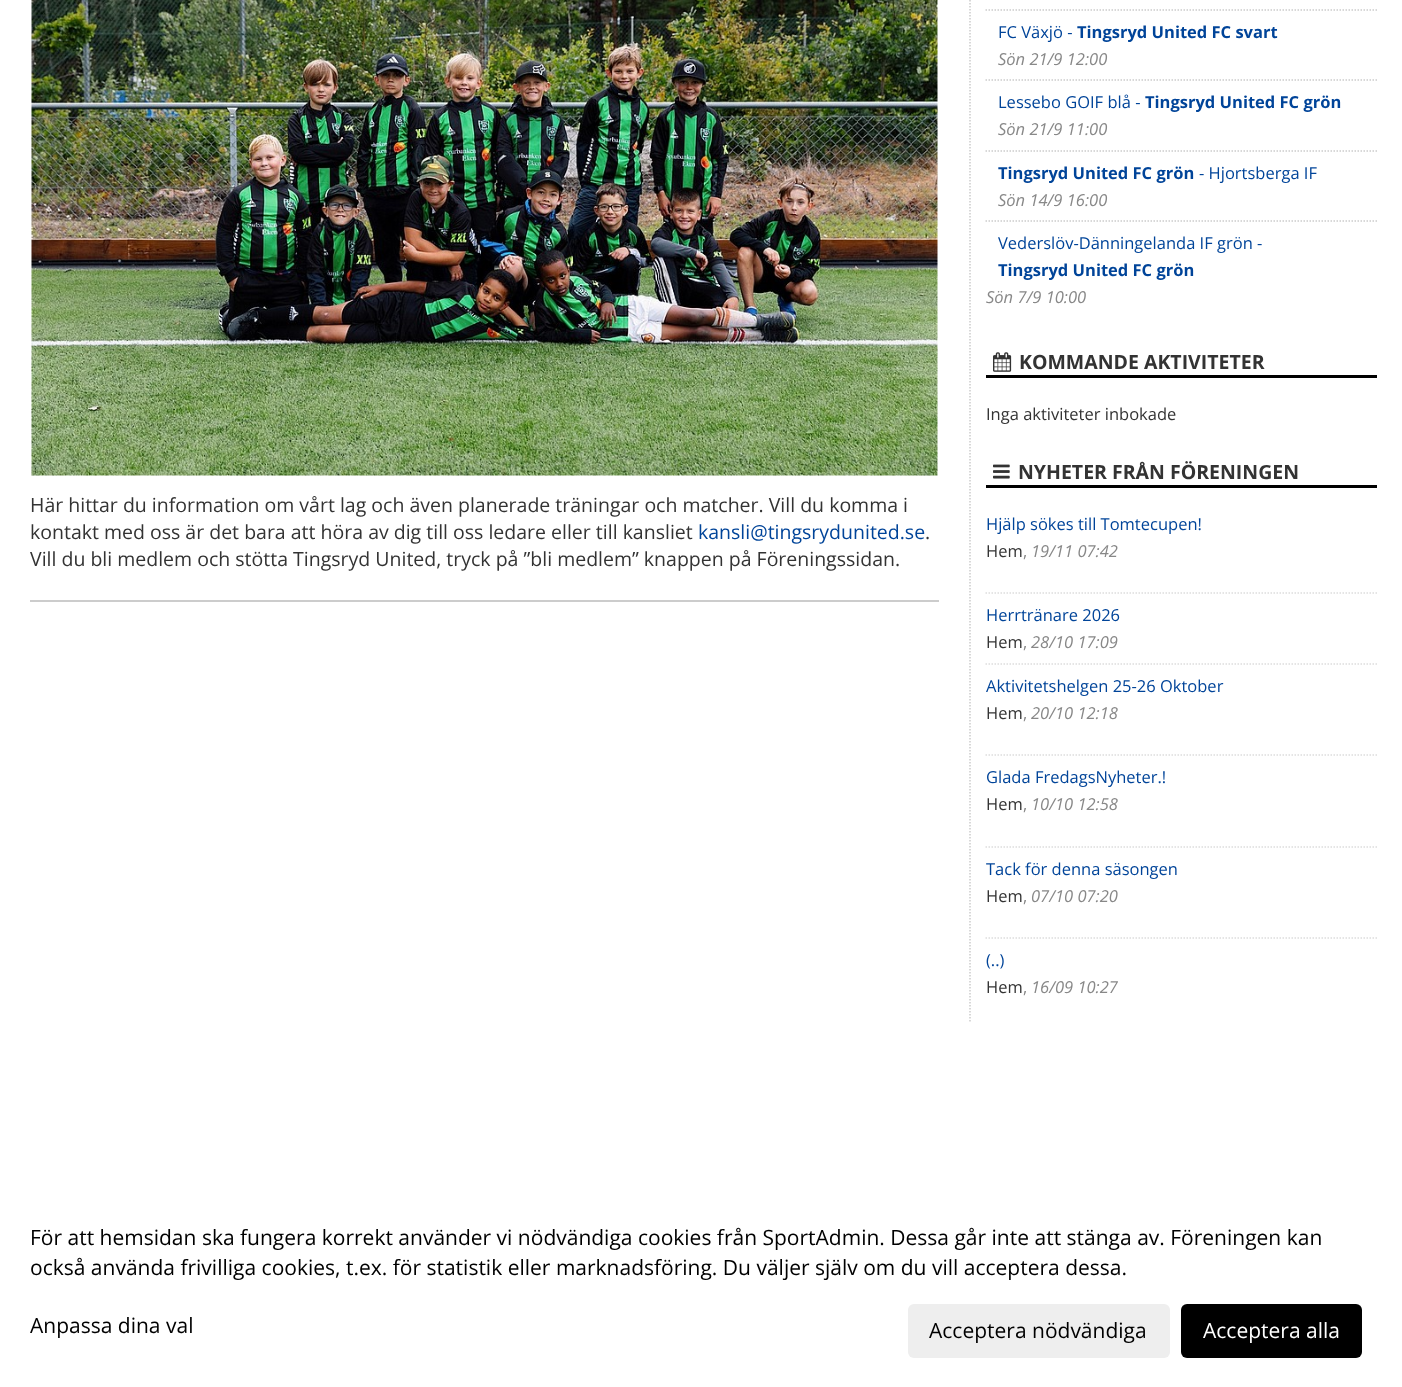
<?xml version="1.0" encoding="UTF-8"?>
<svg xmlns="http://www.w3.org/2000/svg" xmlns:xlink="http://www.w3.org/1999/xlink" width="1402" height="1387">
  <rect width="100%" height="100%" fill="#ffffff" />
  <image x="31" y="0" width="907" height="476" xlink:href="image1.png" />
  <rect x="30" y="600" width="909" height="2" fill="#cccccc" />
  <path d="M 970 -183 v 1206" fill="none" stroke="#cccccc" stroke-width="1.5" stroke-dasharray="1.5 1.5" />
  <path d="M 985.5 10 h 391.5" fill="none" stroke="#cccccc" stroke-width="1.5" stroke-dasharray="1.5 1.5" />
  <path d="M 985.5 80 h 391.5" fill="none" stroke="#cccccc" stroke-width="1.5" stroke-dasharray="1.5 1.5" />
  <path d="M 985.5 151 h 391.5" fill="none" stroke="#cccccc" stroke-width="1.5" stroke-dasharray="1.5 1.5" />
  <path d="M 985.5 221 h 391.5" fill="none" stroke="#cccccc" stroke-width="1.5" stroke-dasharray="1.5 1.5" />
  <rect x="986" y="375" width="391" height="3" fill="#000000" />
  <image x="993" y="352" width="19" height="20" xlink:href="image2.png" />
  <rect x="986" y="485" width="391" height="3" fill="#000000" />
  <image x="993" y="464" width="17" height="15" xlink:href="image3.png" />
  <path d="M 985.5 593 h 391.5" fill="none" stroke="#dddddd" stroke-width="1.5" stroke-dasharray="1.5 1.5" />
  <path d="M 985.5 664 h 391.5" fill="none" stroke="#dddddd" stroke-width="1.5" stroke-dasharray="1.5 1.5" />
  <path d="M 985.5 755 h 391.5" fill="none" stroke="#dddddd" stroke-width="1.5" stroke-dasharray="1.5 1.5" />
  <path d="M 985.5 847 h 391.5" fill="none" stroke="#dddddd" stroke-width="1.5" stroke-dasharray="1.5 1.5" />
  <path d="M 985.5 938 h 391.5" fill="none" stroke="#dddddd" stroke-width="1.5" stroke-dasharray="1.5 1.5" />
  <rect x="908" y="1304" width="262" height="54" rx="6" fill="#eeeeee" />
  <rect x="1181" y="1304" width="181" height="54" rx="6" fill="#000000" />
  <text x="30" y="512" style="font-family: Open Sans; font-size: 19.5px; fill: #333333">Här hittar du information om vårt lag och även planerade träningar och matcher. Vill du komma i</text>
  <text x="30" y="539" style="font-family: Open Sans; font-size: 19.5px; fill: #333333">kontakt med oss är det bara att höra av dig till oss ledare eller till kansliet</text>
  <text x="698" y="539" style="font-family: Open Sans; font-size: 19.5px; fill: #004499">kansli@tingsrydunited.se</text>
  <text x="925" y="539" style="font-family: Open Sans; font-size: 19.5px; fill: #333333">.</text>
  <text x="30" y="566" style="font-family: Open Sans; font-size: 19.5px; fill: #333333">Vill du bli medlem och stötta Tingsryd United, tryck på ”bli medlem” knappen på Föreningssidan.</text>
  <text x="998" y="38" style="font-family: Open Sans; font-size: 16.5px; fill: #004499">FC Växjö -</text>
  <text x="1077" y="38" style="font-family: Open Sans; font-size: 16.5px; font-weight: bold; fill: #004499">Tingsryd United FC svart</text>
  <text x="998" y="65" style="font-family: Open Sans; font-size: 16.5px; font-style: italic; fill: #888888">Sön 21/9 12:00</text>
  <text x="998" y="108" style="font-family: Open Sans; font-size: 16.5px; fill: #004499">Lessebo GOIF blå -</text>
  <text x="1145" y="108" style="font-family: Open Sans; font-size: 16.5px; font-weight: bold; fill: #004499">Tingsryd United FC grön</text>
  <text x="998" y="135" style="font-family: Open Sans; font-size: 16.5px; font-style: italic; fill: #888888">Sön 21/9 11:00</text>
  <text x="998" y="179" style="font-family: Open Sans; font-size: 16.5px; font-weight: bold; fill: #004499">Tingsryd United FC grön</text>
  <text x="1199" y="179" style="font-family: Open Sans; font-size: 16.5px; fill: #004499">- Hjortsberga IF</text>
  <text x="998" y="206" style="font-family: Open Sans; font-size: 16.5px; font-style: italic; fill: #888888">Sön 14/9 16:00</text>
  <text x="998" y="249" style="font-family: Open Sans; font-size: 16.5px; fill: #004499">Vederslöv-Dänningelanda IF grön -</text>
  <text x="998" y="276" style="font-family: Open Sans; font-size: 16.5px; font-weight: bold; fill: #004499">Tingsryd United FC grön</text>
  <text x="986" y="303" style="font-family: Open Sans; font-size: 16.5px; font-style: italic; fill: #888888">Sön 7/9 10:00</text>
  <text x="1019" y="369" style="font-family: Open Sans; font-size: 19.5px; font-weight: bold; fill: #333333">KOMMANDE AKTIVITETER</text>
  <text x="986" y="420" style="font-family: Open Sans; font-size: 16.5px; fill: #333333">Inga aktiviteter inbokade</text>
  <text x="1018" y="479" style="font-family: Open Sans; font-size: 19.5px; font-weight: bold; fill: #333333">NYHETER FRÅN FÖRENINGEN</text>
  <text x="986" y="530" style="font-family: Open Sans; font-size: 16.5px; fill: #004499">Hjälp sökes till Tomtecupen!</text>
  <text x="986" y="557" style="font-family: Open Sans; font-size: 16.5px; fill: #333333">Hem</text>
  <text x="1023" y="557" style="font-family: Open Sans; font-size: 16.5px; fill: #888888">,</text>
  <text x="1031" y="557" style="font-family: Open Sans; font-size: 16.5px; font-style: italic; fill: #888888">19/11 07:42</text>
  <text x="986" y="621" style="font-family: Open Sans; font-size: 16.5px; fill: #004499">Herrtränare 2026</text>
  <text x="986" y="648" style="font-family: Open Sans; font-size: 16.5px; fill: #333333">Hem</text>
  <text x="1023" y="648" style="font-family: Open Sans; font-size: 16.5px; fill: #888888">,</text>
  <text x="1031" y="648" style="font-family: Open Sans; font-size: 16.5px; font-style: italic; fill: #888888">28/10 17:09</text>
  <text x="986" y="692" style="font-family: Open Sans; font-size: 16.5px; fill: #004499">Aktivitetshelgen 25-26 Oktober</text>
  <text x="986" y="719" style="font-family: Open Sans; font-size: 16.5px; fill: #333333">Hem</text>
  <text x="1023" y="719" style="font-family: Open Sans; font-size: 16.5px; fill: #888888">,</text>
  <text x="1031" y="719" style="font-family: Open Sans; font-size: 16.5px; font-style: italic; fill: #888888">20/10 12:18</text>
  <text x="986" y="783" style="font-family: Open Sans; font-size: 16.5px; fill: #004499">Glada FredagsNyheter.!</text>
  <text x="986" y="810" style="font-family: Open Sans; font-size: 16.5px; fill: #333333">Hem</text>
  <text x="1023" y="810" style="font-family: Open Sans; font-size: 16.5px; fill: #888888">,</text>
  <text x="1031" y="810" style="font-family: Open Sans; font-size: 16.5px; font-style: italic; fill: #888888">10/10 12:58</text>
  <text x="986" y="875" style="font-family: Open Sans; font-size: 16.5px; fill: #004499">Tack för denna säsongen</text>
  <text x="986" y="902" style="font-family: Open Sans; font-size: 16.5px; fill: #333333">Hem</text>
  <text x="1023" y="902" style="font-family: Open Sans; font-size: 16.5px; fill: #888888">,</text>
  <text x="1031" y="902" style="font-family: Open Sans; font-size: 16.5px; font-style: italic; fill: #888888">07/10 07:20</text>
  <text x="986" y="966" style="font-family: Open Sans; font-size: 16.5px; fill: #004499">(..)</text>
  <text x="986" y="993" style="font-family: Open Sans; font-size: 16.5px; fill: #333333">Hem</text>
  <text x="1023" y="993" style="font-family: Open Sans; font-size: 16.5px; fill: #888888">,</text>
  <text x="1031" y="993" style="font-family: Open Sans; font-size: 16.5px; font-style: italic; fill: #888888">16/09 10:27</text>
  <text x="30" y="1245" style="font-family: Open Sans; font-size: 21px; fill: #000000">För att hemsidan ska fungera korrekt använder vi nödvändiga cookies från SportAdmin. Dessa går inte att stänga av. Föreningen kan</text>
  <text x="30" y="1275" style="font-family: Open Sans; font-size: 21px; fill: #000000">också använda frivilliga cookies, t.ex. för statistik eller marknadsföring. Du väljer själv om du vill acceptera dessa.</text>
  <text x="30" y="1333" style="font-family: Open Sans; font-size: 21px; fill: #000000">Anpassa dina val</text>
  <text x="929" y="1338" style="font-family: Open Sans; font-size: 21px; fill: #000000">Acceptera nödvändiga</text>
  <text x="1203" y="1338" style="font-family: Open Sans; font-size: 21px; fill: #ffffff">Acceptera alla</text>
</svg>
